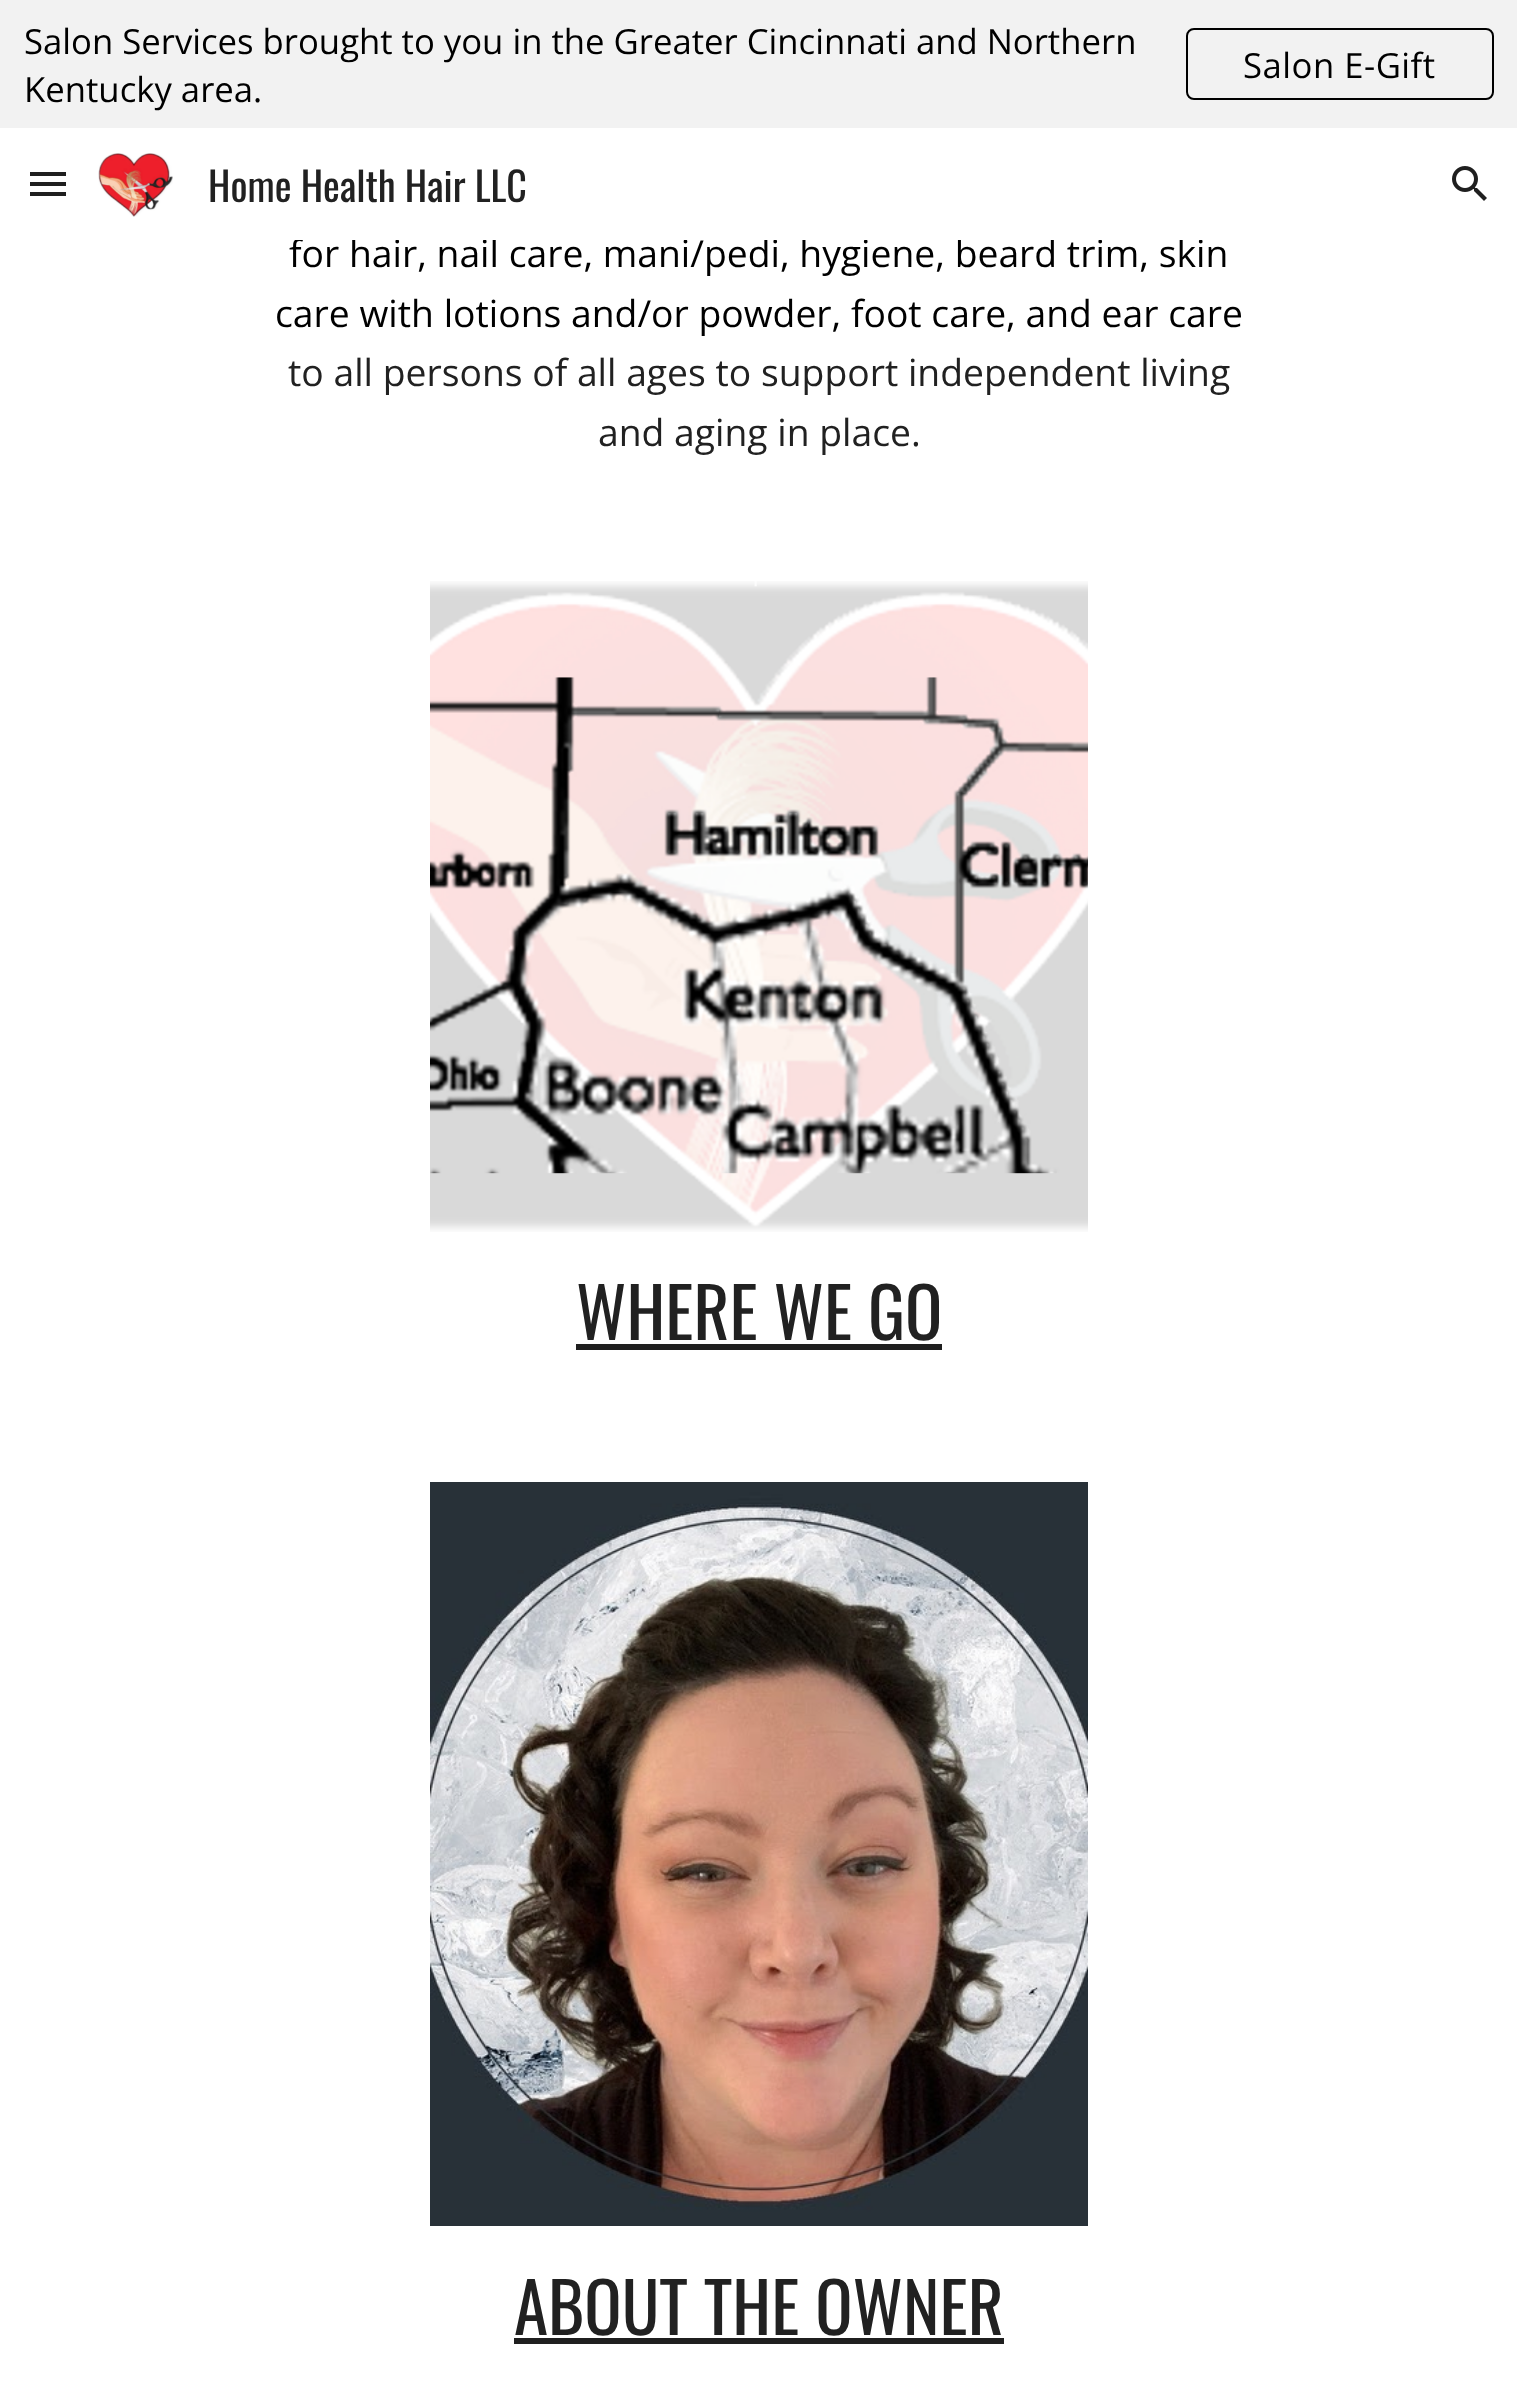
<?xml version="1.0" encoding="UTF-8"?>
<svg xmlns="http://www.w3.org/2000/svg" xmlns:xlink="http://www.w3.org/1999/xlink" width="1517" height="2389">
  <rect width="100%" height="100%" fill="#ffffff" />
  <rect width="1517" height="128" fill="#f2f2f2" />
  <rect x="1187" y="29" width="306" height="70" rx="7" fill="none" stroke="#000000" stroke-width="2" />
  <rect x="30" y="172" width="36" height="4" fill="#1f1f1f" />
  <rect x="30" y="182" width="36" height="4" fill="#1f1f1f" />
  <rect x="30" y="192" width="36" height="4" fill="#1f1f1f" />
  <image x="98" y="153" width="75" height="64" xlink:href="image1.png" />
  <image x="1452" y="166" width="35" height="35" xlink:href="image2.png" />
  <image x="430" y="581" width="658" height="651" xlink:href="image3.png" />
  <rect x="576" y="1344" width="366" height="6" fill="#1f1f1f" />
  <image x="430" y="1482" width="658" height="744" xlink:href="image4.png" />
  <rect x="514" y="2338" width="490" height="6" fill="#1f1f1f" />
  <text x="24" y="54" style="font-family: Open Sans; font-size: 34.7px; fill: #000000">Salon Services brought to you in the Greater Cincinnati and Northern</text>
  <text x="24" y="102" style="font-family: Open Sans; font-size: 34.7px; fill: #000000">Kentucky area.</text>
  <text x="1243" y="78" style="font-family: Open Sans; font-size: 34.7px; letter-spacing: 0.5px; fill: #000000">Salon E-Gift</text>
  <text x="208" y="202" style="font-family: Oswald; font-size: 40px; fill: #212121">Home Health Hair LLC</text>
  <text x="289" y="267" style="font-family: Open Sans; font-size: 37.3px; fill: #000000">for hair, nail care, mani/pedi, hygiene, beard trim, skin</text>
  <rect x="295" y="238" width="908" height="2" fill="#ffffff" />
  <text x="275" y="327" style="font-family: Open Sans; font-size: 37.3px; fill: #000000">care with lotions and/or powder, foot care, and ear care</text>
  <text x="288" y="386" style="font-family: Open Sans; font-size: 37.3px; fill: #212121">to all persons of all ages to support independent living</text>
  <text x="598" y="446" style="font-family: Open Sans; font-size: 37.3px; fill: #212121">and aging in place.</text>
  <text x="576" y="1340" style="font-family: Oswald; font-size: 69.25px; fill: #212121">WHERE WE GO</text>
  <text x="514" y="2335" style="font-family: Oswald; font-size: 69.25px; fill: #212121">ABOUT THE OWNER</text>
</svg>
